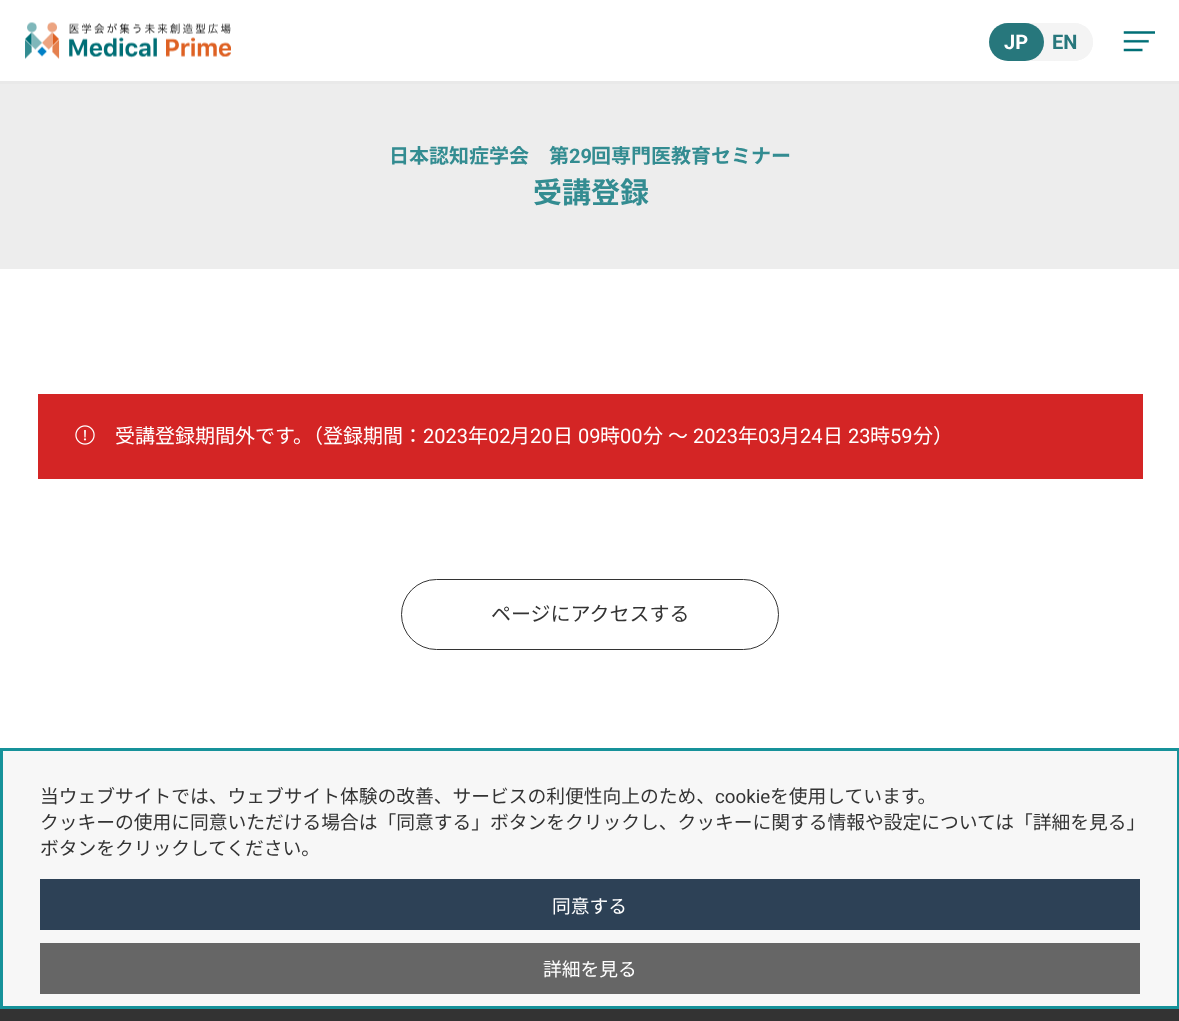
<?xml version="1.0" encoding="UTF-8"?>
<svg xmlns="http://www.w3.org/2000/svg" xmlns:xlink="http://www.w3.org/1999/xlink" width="1179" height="1021">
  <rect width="100%" height="100%" fill="#ffffff" />
  <rect y="81" width="1179" height="3" fill="#e9e9e9" />
  <image x="25" y="22" width="206" height="37" xlink:href="image1.png" />
  <rect x="989" y="23" width="104" height="38" rx="19" fill="#f4f4f4" />
  <rect x="1038" y="23" width="55" height="38" rx="19" fill="#f4f4f4" />
  <rect x="989" y="23" width="55" height="38" rx="19" fill="#27777c" />
  <image x="1123" y="31" width="32" height="21" xlink:href="image2.png" />
  <rect y="84" width="1179" height="185" fill="#ededed" />
  <rect x="38" y="394" width="1105" height="85" fill="#d42525" />
  <image x="75" y="425" width="20" height="20" xlink:href="image3.png" />
  <rect x="401.5" y="579.5" width="377" height="70" rx="35" fill="none" stroke="#333333" />
  <rect x="1.5" y="749.5" width="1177" height="258" fill="#f7f7f7" stroke="#16929a" stroke-width="3" />
  <rect x="40" y="879" width="1100" height="51" fill="#2d4156" />
  <rect x="40" y="943" width="1100" height="51" fill="#666666" />
  <rect y="1009" width="1179" height="12" fill="#333333" />
  <text x="1004" y="49" style="font-family: Roboto; font-size: 20px; font-weight: bold; fill: #ffffff">JP</text>
  <text x="1052" y="49" style="font-family: Roboto; font-size: 20px; font-weight: bold; fill: #27777c">EN</text>
  <text x="389" y="163" style="font-family: Noto Sans JP; font-size: 20px; font-weight: bold; fill: #338c91">日本認知症学会　第</text>
  <text x="569" y="163" style="font-family: Roboto; font-size: 20px; font-weight: bold; fill: #338c91">29</text>
  <text x="591" y="163" style="font-family: Noto Sans JP; font-size: 20px; font-weight: bold; fill: #338c91">回専門医教育セミナー</text>
  <text x="533" y="203" style="font-family: Noto Sans JP; font-size: 29px; font-weight: bold; fill: #338c91">受講登録</text>
  <text x="115" y="443" style="font-family: Noto Sans JP; font-size: 20px; fill: #ffffff">受講登録期間外です。（登録期間：</text>
  <text x="423" y="443" style="font-family: Roboto; font-size: 20px; fill: #ffffff">2023</text>
  <text x="468" y="443" style="font-family: Noto Sans JP; font-size: 20px; fill: #ffffff">年</text>
  <text x="488" y="443" style="font-family: Roboto; font-size: 20px; fill: #ffffff">02</text>
  <text x="510" y="443" style="font-family: Noto Sans JP; font-size: 20px; fill: #ffffff">月</text>
  <text x="530" y="443" style="font-family: Roboto; font-size: 20px; fill: #ffffff">20</text>
  <text x="553" y="443" style="font-family: Noto Sans JP; font-size: 20px; fill: #ffffff">日</text>
  <text x="578" y="443" style="font-family: Roboto; font-size: 20px; fill: #ffffff">09</text>
  <text x="600" y="443" style="font-family: Noto Sans JP; font-size: 20px; fill: #ffffff">時</text>
  <text x="620" y="443" style="font-family: Roboto; font-size: 20px; fill: #ffffff">00</text>
  <text x="643" y="443" style="font-family: Noto Sans JP; font-size: 20px; fill: #ffffff">分</text>
  <text x="668" y="443" style="font-family: Noto Sans JP; font-size: 20px; fill: #ffffff">～</text>
  <text x="693" y="443" style="font-family: Roboto; font-size: 20px; fill: #ffffff">2023</text>
  <text x="738" y="443" style="font-family: Noto Sans JP; font-size: 20px; fill: #ffffff">年</text>
  <text x="758" y="443" style="font-family: Roboto; font-size: 20px; fill: #ffffff">03</text>
  <text x="780" y="443" style="font-family: Noto Sans JP; font-size: 20px; fill: #ffffff">月</text>
  <text x="800" y="443" style="font-family: Roboto; font-size: 20px; fill: #ffffff">24</text>
  <text x="823" y="443" style="font-family: Noto Sans JP; font-size: 20px; fill: #ffffff">日</text>
  <text x="848" y="443" style="font-family: Roboto; font-size: 20px; fill: #ffffff">23</text>
  <text x="870" y="443" style="font-family: Noto Sans JP; font-size: 20px; fill: #ffffff">時</text>
  <text x="890" y="443" style="font-family: Roboto; font-size: 20px; fill: #ffffff">59</text>
  <text x="913" y="443" style="font-family: Noto Sans JP; font-size: 20px; fill: #ffffff">分）</text>
  <text x="491" y="621" style="font-family: Noto Sans JP; font-size: 20px; fill: #333333">ページにアクセスする</text>
  <text x="40" y="803" style="font-family: Noto Sans JP; font-size: 18.75px; fill: #333333">当ウェブサイトでは、ウェブサイト体験の改善、サービスの利便性向上のため、</text>
  <text x="715" y="803" style="font-family: Roboto; font-size: 18.75px; fill: #333333">cookie</text>
  <text x="770" y="803" style="font-family: Noto Sans JP; font-size: 18.75px; fill: #333333">を使用しています。</text>
  <text x="40" y="829" style="font-family: Noto Sans JP; font-size: 18.75px; fill: #333333">クッキーの使用に同意いただける場合は「同意する」ボタンをクリックし、クッキーに関する情報や設定については「詳細を見る」</text>
  <text x="40" y="855" style="font-family: Noto Sans JP; font-size: 18.75px; fill: #333333">ボタンをクリックしてください。</text>
  <text x="552" y="913" style="font-family: Noto Sans JP; font-size: 18.75px; fill: #ffffff">同意する</text>
  <text x="543" y="976" style="font-family: Noto Sans JP; font-size: 18.75px; fill: #ffffff">詳細を見る</text>
</svg>
